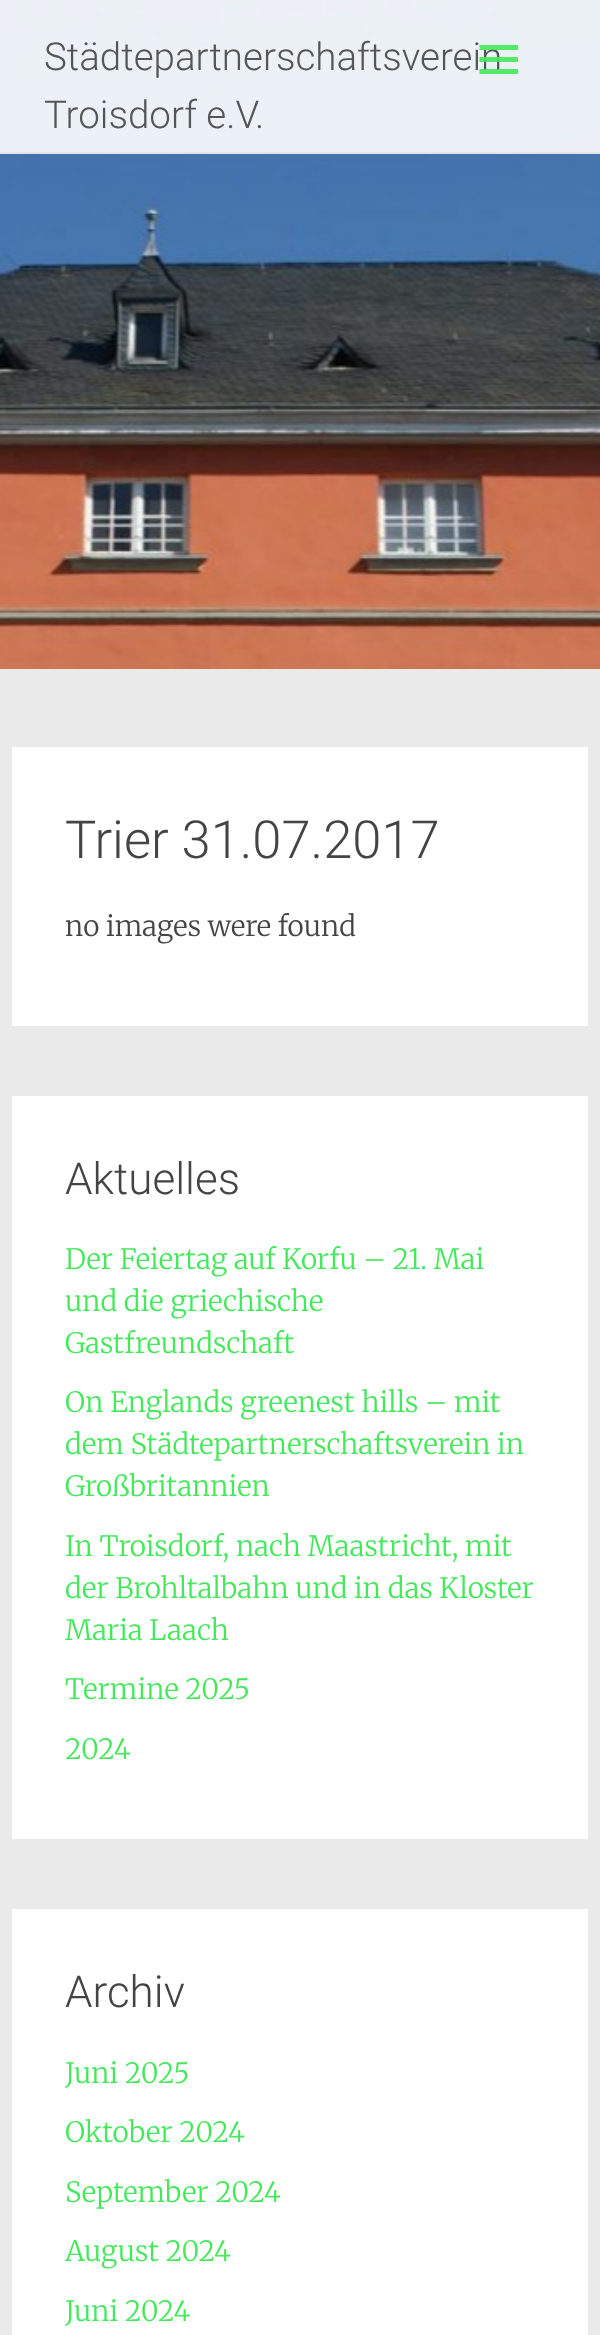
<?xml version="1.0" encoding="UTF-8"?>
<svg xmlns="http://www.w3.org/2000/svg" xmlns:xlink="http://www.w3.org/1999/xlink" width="600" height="2335">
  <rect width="100%" height="100%" fill="#ffffff" />
  <image x="0" y="0" width="600" height="669" xlink:href="image1.png" />
  <rect width="600" height="152" fill="#ffffff" fill-opacity="0.9" />
  <rect y="152" width="600" height="2" fill="#e2e5e8" />
  <rect y="669" width="600" height="1666" fill="#eaeaea" />
  <rect x="12" y="747" width="576" height="279" fill="#ffffff" />
  <rect x="12" y="1096" width="576" height="743" fill="#ffffff" />
  <rect x="12" y="1909" width="576" height="426" fill="#ffffff" />
  <text x="44" y="70" style="font-family: Roboto; font-size: 38.5px; font-weight: 300; fill: #555556">Städtepartnerschaftsverein</text>
  <text x="44" y="128" style="font-family: Roboto; font-size: 38.5px; font-weight: 300; fill: #555556">Troisdorf e.V.</text>
  <path d="M 479.5 74 v -5 h 38.5 v 5 z m 0 -29 h 38.5 v 5 h -38.5 z m 0 17 v -5 h 38.5 v 5 z" fill="#45e85b" fill-opacity="0.9" />
  <text x="65" y="858" style="font-family: Roboto; font-size: 52.5px; font-weight: 300; fill: #444444">Trier 31.07.2017</text>
  <text x="65" y="936" style="font-family: Merriweather; font-size: 28px; font-weight: 300; fill: #444444">no images were found</text>
  <text x="65" y="1194" style="font-family: Roboto; font-size: 44px; font-weight: 300; fill: #444444">Aktuelles</text>
  <text x="65" y="1269" style="font-family: Merriweather; font-size: 28px; font-weight: 300; fill: #45e85b">Der Feiertag auf Korfu – 21. Mai</text>
  <text x="65" y="1311" style="font-family: Merriweather; font-size: 28px; font-weight: 300; fill: #45e85b">und die griechische</text>
  <text x="65" y="1353" style="font-family: Merriweather; font-size: 28px; font-weight: 300; fill: #45e85b">Gastfreundschaft</text>
  <text x="65" y="1412" style="font-family: Merriweather; font-size: 28px; font-weight: 300; fill: #45e85b">On Englands greenest hills – mit</text>
  <text x="65" y="1454" style="font-family: Merriweather; font-size: 28px; font-weight: 300; fill: #45e85b">dem Städtepartnerschaftsverein in</text>
  <text x="65" y="1496" style="font-family: Merriweather; font-size: 28px; font-weight: 300; fill: #45e85b">Großbritannien</text>
  <text x="65" y="1556" style="font-family: Merriweather; font-size: 28px; font-weight: 300; fill: #45e85b">In Troisdorf, nach Maastricht, mit</text>
  <text x="65" y="1598" style="font-family: Merriweather; font-size: 28px; font-weight: 300; fill: #45e85b">der Brohltalbahn und in das Kloster</text>
  <text x="65" y="1640" style="font-family: Merriweather; font-size: 28px; font-weight: 300; fill: #45e85b">Maria Laach</text>
  <text x="65" y="1699" style="font-family: Merriweather; font-size: 28px; font-weight: 300; fill: #45e85b">Termine 2025</text>
  <text x="65" y="1759" style="font-family: Merriweather; font-size: 28px; font-weight: 300; fill: #45e85b">2024</text>
  <text x="65" y="2007" style="font-family: Roboto; font-size: 44px; font-weight: 300; fill: #444444">Archiv</text>
  <text x="65" y="2083" style="font-family: Merriweather; font-size: 28px; font-weight: 300; fill: #45e85b">Juni 2025</text>
  <text x="65" y="2142" style="font-family: Merriweather; font-size: 28px; font-weight: 300; fill: #45e85b">Oktober 2024</text>
  <text x="65" y="2202" style="font-family: Merriweather; font-size: 28px; font-weight: 300; fill: #45e85b">September 2024</text>
  <text x="65" y="2261" style="font-family: Merriweather; font-size: 28px; font-weight: 300; fill: #45e85b">August 2024</text>
  <text x="65" y="2321" style="font-family: Merriweather; font-size: 28px; font-weight: 300; fill: #45e85b">Juni 2024</text>
</svg>
